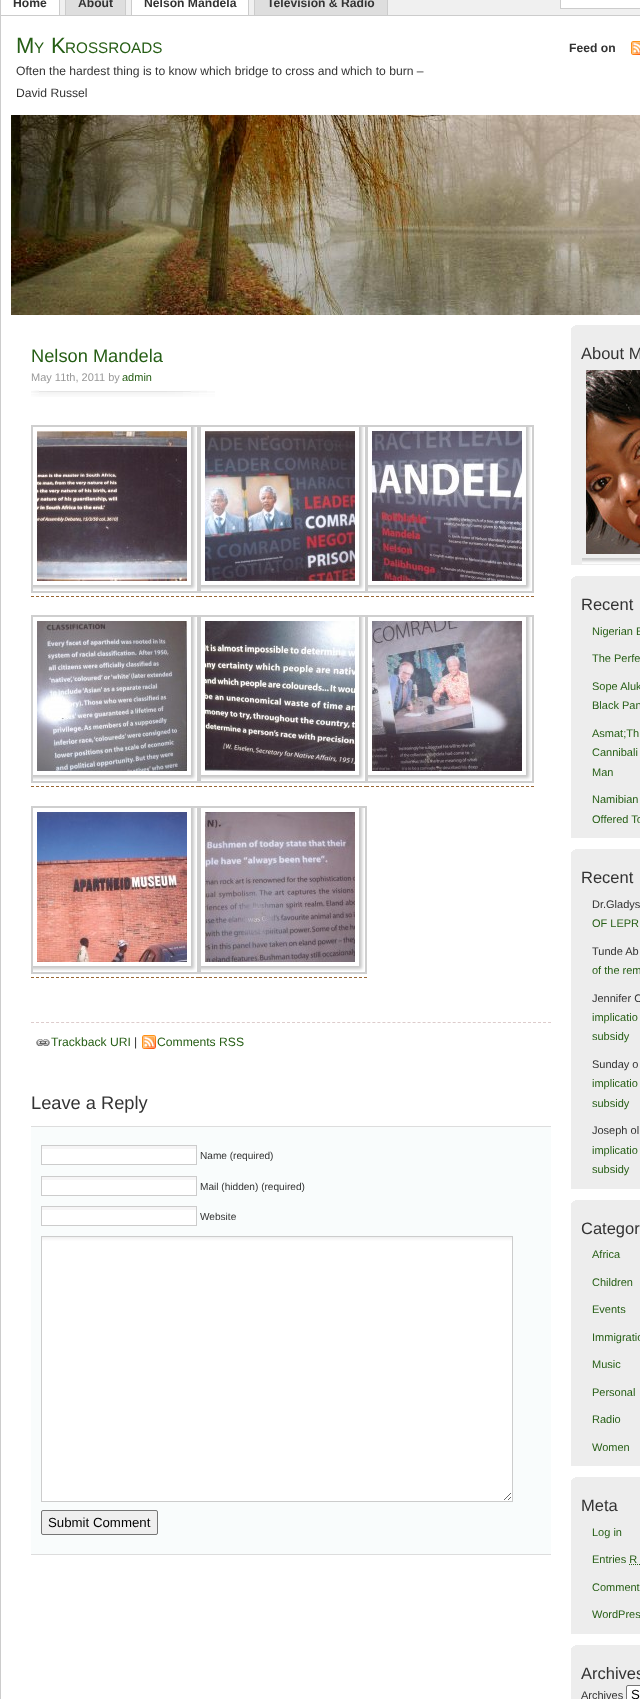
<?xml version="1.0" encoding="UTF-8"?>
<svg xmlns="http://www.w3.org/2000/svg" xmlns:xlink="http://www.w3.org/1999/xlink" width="640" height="1699">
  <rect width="100%" height="100%" fill="#f0f0f0" />
  <rect x="1" width="58" height="15" fill="#ffffff" />
  <rect x="59" width="1" height="15" fill="#cccccc" />
  <rect width="1" height="15" fill="#cccccc" />
  <rect x="66" width="59" height="15" fill="#dedede" />
  <rect x="125" width="1" height="15" fill="#cccccc" />
  <rect x="65" width="1" height="15" fill="#cccccc" />
  <rect x="132" width="116" height="15" fill="#ffffff" />
  <rect x="248" width="1" height="15" fill="#cccccc" />
  <rect x="131" width="1" height="15" fill="#cccccc" />
  <rect x="255" width="132" height="15" fill="#dedede" />
  <rect x="387" width="1" height="15" fill="#cccccc" />
  <rect x="254" width="1" height="15" fill="#cccccc" />
  <rect x="560.5" y="-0.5" width="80" height="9" fill="#ffffff" stroke="#cccccc" />
  <rect x="0.5" y="15.5" width="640" height="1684" fill="#ffffff" stroke="#cccccc" />
  <image x="631" y="41" width="9" height="14" xlink:href="image1.png" />
  <image x="11" y="115" width="629" height="200" xlink:href="image2.png" />
  <path d="M 31 1022.5 h 520" fill="none" stroke="#ddcccc" stroke-dasharray="3 2.02" />
  <image x="31" y="390" width="184" height="7" xlink:href="image3.png" />
  <image x="33" y="427" width="163" height="163" xlink:href="image4.png" />
  <rect x="32" y="426" width="166" height="166" fill="none" stroke="#cfcfcf" stroke-width="2" />
  <path d="M 31 596.5 h 168" fill="none" stroke="#996633" stroke-dasharray="3 2" />
  <image x="201" y="427" width="163" height="163" xlink:href="image5.png" />
  <rect x="200" y="426" width="166" height="166" fill="none" stroke="#cfcfcf" stroke-width="2" />
  <path d="M 199 596.5 h 168" fill="none" stroke="#996633" stroke-dasharray="3 2" />
  <image x="368" y="427" width="163" height="164" xlink:href="image6.png" />
  <rect x="367" y="426" width="166" height="166" fill="none" stroke="#cfcfcf" stroke-width="2" />
  <path d="M 366 596.5 h 168" fill="none" stroke="#996633" stroke-dasharray="3 2" />
  <image x="33" y="617" width="163" height="163" xlink:href="image7.png" />
  <rect x="32" y="616" width="166" height="166" fill="none" stroke="#cfcfcf" stroke-width="2" />
  <path d="M 31 786.5 h 168" fill="none" stroke="#996633" stroke-dasharray="3 2" />
  <image x="201" y="617" width="163" height="163" xlink:href="image8.png" />
  <rect x="200" y="616" width="166" height="166" fill="none" stroke="#cfcfcf" stroke-width="2" />
  <path d="M 199 786.5 h 168" fill="none" stroke="#996633" stroke-dasharray="3 2" />
  <image x="368" y="617" width="163" height="164" xlink:href="image9.png" />
  <rect x="367" y="616" width="166" height="166" fill="none" stroke="#cfcfcf" stroke-width="2" />
  <path d="M 366 786.5 h 168" fill="none" stroke="#996633" stroke-dasharray="3 2" />
  <image x="33" y="808" width="163" height="163" xlink:href="image10.png" />
  <rect x="32" y="807" width="166" height="166" fill="none" stroke="#cfcfcf" stroke-width="2" />
  <path d="M 31 977.5 h 168" fill="none" stroke="#996633" stroke-dasharray="3 2" />
  <image x="201" y="808" width="163" height="163" xlink:href="image11.png" />
  <rect x="200" y="807" width="166" height="166" fill="none" stroke="#cfcfcf" stroke-width="2" />
  <path d="M 199 977.5 h 168" fill="none" stroke="#996633" stroke-dasharray="3 2" />
  <image x="36" y="1039" width="14" height="7" xlink:href="image12.png" />
  <image x="142" y="1035" width="14" height="14" xlink:href="image13.png" />
  <rect x="31" y="1127" width="520" height="427" fill="#f9fcfc" />
  <rect x="31" y="1126" width="520" height="1" fill="#dddddd" />
  <rect x="31" y="1554" width="520" height="1" fill="#dddddd" />
  <rect x="42" y="1149" width="154" height="15" fill="#ffffff" />
  <rect x="41" y="1146" width="156" height="3" fill="#f6f5f6" />
  <rect x="41.5" y="1145.5" width="155" height="19" fill="none" stroke="#cccccc" />
  <rect x="42" y="1180" width="154" height="15" fill="#ffffff" />
  <rect x="41" y="1177" width="156" height="3" fill="#f6f5f6" />
  <rect x="41.5" y="1176.5" width="155" height="19" fill="none" stroke="#cccccc" />
  <rect x="42" y="1210" width="154" height="15" fill="#ffffff" />
  <rect x="41" y="1207" width="156" height="3" fill="#f6f5f6" />
  <rect x="41.5" y="1206.5" width="155" height="19" fill="none" stroke="#cccccc" />
  <rect x="42" y="1262" width="470" height="239" fill="#ffffff" />
  <image x="42" y="1237" width="470" height="263" xlink:href="image14.png" />
  <rect x="41.5" y="1236.5" width="471" height="265" fill="none" stroke="#cccccc" />
  <rect x="41.5" y="1510.5" width="116" height="24" rx="1.5" fill="#efefef" stroke="#767676" />
  <rect x="571" y="325" width="69" height="240" fill="#ededed" />
  <image x="571" y="325" width="4" height="3" xlink:href="image15.png" />
  <image x="582" y="370" width="58" height="194" xlink:href="image16.png" />
  <rect x="571" y="576" width="69" height="262" fill="#ededed" />
  <image x="571" y="576" width="4" height="3" xlink:href="image15.png" />
  <rect x="571" y="849" width="69" height="340" fill="#ededed" />
  <image x="571" y="849" width="4" height="3" xlink:href="image15.png" />
  <rect x="571" y="1200" width="69" height="266" fill="#ededed" />
  <image x="571" y="1200" width="4" height="3" xlink:href="image15.png" />
  <rect x="571" y="1477" width="69" height="157" fill="#ededed" />
  <image x="571" y="1477" width="4" height="3" xlink:href="image15.png" />
  <path d="M 629 1564.5 h 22.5" fill="none" stroke="#265e15" stroke-dasharray="1 1" />
  <rect x="571" y="1645" width="69" height="54" fill="#ededed" />
  <image x="571" y="1645" width="4" height="3" xlink:href="image15.png" />
  <rect x="626.5" y="1685.5" width="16" height="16" rx="1.5" fill="#ffffff" stroke="#767676" />
  <text x="13" y="7" style="font-family: Liberation Sans; font-size: 12.15px; font-weight: bold; fill: #333333">Home</text>
  <text x="78" y="7" style="font-family: Liberation Sans; font-size: 12.15px; font-weight: bold; fill: #333333">About</text>
  <text x="144" y="7" style="font-family: Liberation Sans; font-size: 12.15px; font-weight: bold; fill: #333333">Nelson Mandela</text>
  <text x="267" y="7" style="font-family: Liberation Sans; font-size: 12.15px; font-weight: bold; fill: #333333">Television &amp; Radio</text>
  <text x="16" y="53" style="font-family: Liberation Sans; font-size: 22px; fill: #265e15">M</text>
  <text x="34" y="53" style="font-family: Liberation Sans; font-size: 15.25px; fill: #265e15">Y</text>
  <text x="51" y="53" style="font-family: Liberation Sans; font-size: 22px; fill: #265e15">K</text>
  <text x="65" y="53" style="font-family: Liberation Sans; font-size: 15.25px; fill: #265e15">ROSSROADS</text>
  <text x="16" y="75" style="font-family: Liberation Sans; font-size: 12.15px; fill: #333333">Often the hardest thing is to know which bridge to cross and which to burn –</text>
  <text x="16" y="97" style="font-family: Liberation Sans; font-size: 12.15px; fill: #333333">David Russel</text>
  <text x="569" y="52" style="font-family: Liberation Sans; font-size: 12.15px; font-weight: bold; fill: #333333">Feed on</text>
  <text x="31" y="362" style="font-family: Liberation Sans; font-size: 18.25px; fill: #265e15">Nelson Mandela</text>
  <text x="31" y="381" style="font-family: Liberation Sans; font-size: 11px; fill: #999999">May 11th, 2011 by</text>
  <text x="122" y="381" style="font-family: Liberation Sans; font-size: 11px; fill: #265e15">admin</text>
  <text x="51" y="1046" style="font-family: Liberation Sans; font-size: 12.15px; fill: #265e15">Trackback URI</text>
  <text x="134" y="1046" style="font-family: Liberation Sans; font-size: 12.15px; fill: #333333">|</text>
  <text x="157" y="1046" style="font-family: Liberation Sans; font-size: 12.15px; fill: #265e15">Comments RSS</text>
  <text x="31" y="1109" style="font-family: Liberation Sans; font-size: 18.25px; fill: #333333">Leave a Reply</text>
  <text x="200" y="1159" style="font-family: Liberation Sans; font-size: 10.1px; fill: #333333">Name (required)</text>
  <text x="200" y="1190" style="font-family: Liberation Sans; font-size: 10.1px; fill: #333333">Mail (hidden) (required)</text>
  <text x="200" y="1220" style="font-family: Liberation Sans; font-size: 10.1px; fill: #333333">Website</text>
  <text x="48" y="1527" style="font-family: Liberation Sans; font-size: 13.25px; fill: #000000">Submit Comment</text>
  <text x="581" y="359" style="font-family: Liberation Sans; font-size: 16.5px; fill: #333333">About M</text>
  <text x="581" y="610" style="font-family: Liberation Sans; font-size: 16.5px; fill: #333333">Recent</text>
  <text x="592" y="635" style="font-family: Liberation Sans; font-size: 11px; fill: #265e15">Nigerian E</text>
  <text x="592" y="662" style="font-family: Liberation Sans; font-size: 11px; fill: #265e15">The Perfe</text>
  <text x="592" y="690" style="font-family: Liberation Sans; font-size: 11px; fill: #265e15">Sope Aluk</text>
  <text x="592" y="709" style="font-family: Liberation Sans; font-size: 11px; fill: #265e15">Black Pan</text>
  <text x="592" y="737" style="font-family: Liberation Sans; font-size: 11px; fill: #265e15">Asmat;Th</text>
  <text x="592" y="756" style="font-family: Liberation Sans; font-size: 11px; fill: #265e15">Cannibali</text>
  <text x="592" y="776" style="font-family: Liberation Sans; font-size: 11px; fill: #265e15">Man</text>
  <text x="592" y="803" style="font-family: Liberation Sans; font-size: 11px; fill: #265e15">Namibian</text>
  <text x="592" y="823" style="font-family: Liberation Sans; font-size: 11px; fill: #265e15">Offered To</text>
  <text x="581" y="883" style="font-family: Liberation Sans; font-size: 16.5px; fill: #333333">Recent</text>
  <text x="592" y="908" style="font-family: Liberation Sans; font-size: 11px; fill: #333333">Dr.Gladys</text>
  <text x="592" y="927" style="font-family: Liberation Sans; font-size: 11px; fill: #265e15">OF LEPR</text>
  <text x="592" y="955" style="font-family: Liberation Sans; font-size: 11px; fill: #333333">Tunde Ab</text>
  <text x="592" y="974" style="font-family: Liberation Sans; font-size: 11px; fill: #265e15">of the rem</text>
  <text x="592" y="1002" style="font-family: Liberation Sans; font-size: 11px; fill: #333333">Jennifer O</text>
  <text x="592" y="1021" style="font-family: Liberation Sans; font-size: 11px; fill: #265e15">implicatio</text>
  <text x="592" y="1040" style="font-family: Liberation Sans; font-size: 11px; fill: #265e15">subsidy</text>
  <text x="592" y="1068" style="font-family: Liberation Sans; font-size: 11px; fill: #333333">Sunday o</text>
  <text x="592" y="1087" style="font-family: Liberation Sans; font-size: 11px; fill: #265e15">implicatio</text>
  <text x="592" y="1107" style="font-family: Liberation Sans; font-size: 11px; fill: #265e15">subsidy</text>
  <text x="592" y="1134" style="font-family: Liberation Sans; font-size: 11px; fill: #333333">Joseph ol</text>
  <text x="592" y="1154" style="font-family: Liberation Sans; font-size: 11px; fill: #265e15">implicatio</text>
  <text x="592" y="1173" style="font-family: Liberation Sans; font-size: 11px; fill: #265e15">subsidy</text>
  <text x="581" y="1234" style="font-family: Liberation Sans; font-size: 16.5px; fill: #333333">Categor</text>
  <text x="592" y="1258" style="font-family: Liberation Sans; font-size: 11px; fill: #265e15">Africa</text>
  <text x="592" y="1286" style="font-family: Liberation Sans; font-size: 11px; fill: #265e15">Children</text>
  <text x="592" y="1313" style="font-family: Liberation Sans; font-size: 11px; fill: #265e15">Events</text>
  <text x="592" y="1341" style="font-family: Liberation Sans; font-size: 11px; fill: #265e15">Immigratio</text>
  <text x="592" y="1368" style="font-family: Liberation Sans; font-size: 11px; fill: #265e15">Music</text>
  <text x="592" y="1396" style="font-family: Liberation Sans; font-size: 11px; fill: #265e15">Personal</text>
  <text x="592" y="1423" style="font-family: Liberation Sans; font-size: 11px; fill: #265e15">Radio</text>
  <text x="592" y="1451" style="font-family: Liberation Sans; font-size: 11px; fill: #265e15">Women</text>
  <text x="581" y="1511" style="font-family: Liberation Sans; font-size: 16.5px; fill: #333333">Meta</text>
  <text x="592" y="1536" style="font-family: Liberation Sans; font-size: 11px; fill: #265e15">Log in</text>
  <text x="592" y="1563" style="font-family: Liberation Sans; font-size: 11px; fill: #265e15">Entries R</text>
  <text x="592" y="1591" style="font-family: Liberation Sans; font-size: 11px; fill: #265e15">Comment</text>
  <text x="592" y="1618" style="font-family: Liberation Sans; font-size: 11px; fill: #265e15">WordPres</text>
  <text x="581" y="1679" style="font-family: Liberation Sans; font-size: 16.5px; fill: #333333">Archives</text>
  <text x="581" y="1699" style="font-family: Liberation Sans; font-size: 11px; fill: #333333">Archives</text>
  <text x="631" y="1699" style="font-family: Liberation Sans; font-size: 13.25px; fill: #000000">S</text>
</svg>
